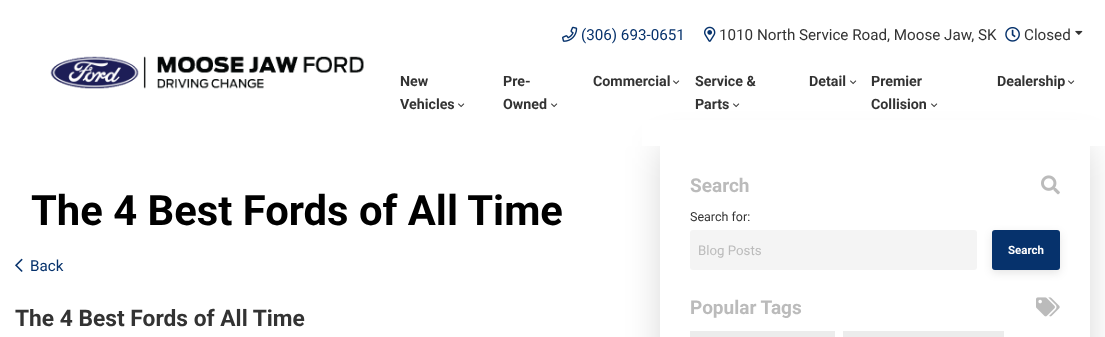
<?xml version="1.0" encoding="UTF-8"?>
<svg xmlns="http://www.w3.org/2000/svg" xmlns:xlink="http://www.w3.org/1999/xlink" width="1105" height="337">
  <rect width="100%" height="100%" fill="#ffffff" />
  <rect x="660" y="146" width="430" height="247" rx="5" fill="#000000" fill-opacity="0.15" filter="blur(17px)" />
  <rect x="642" y="120" width="463" height="26" fill="#ffffff" />
  <image x="50" y="56" width="314" height="33" xlink:href="image1.png" />
  <image x="562" y="26" width="16" height="16" xlink:href="image2.png" />
  <image x="704" y="26" width="12" height="16" xlink:href="image3.png" />
  <image x="1005" y="27" width="15" height="15" xlink:href="image4.png" />
  <image x="1075" y="30" width="8" height="5" xlink:href="image5.png" />
  <image x="458" y="103" width="7" height="5" xlink:href="image6.png" />
  <image x="551" y="103" width="7" height="5" xlink:href="image6.png" />
  <image x="673" y="80" width="7" height="5" xlink:href="image6.png" />
  <image x="733" y="103" width="7" height="5" xlink:href="image6.png" />
  <image x="850" y="80" width="7" height="5" xlink:href="image6.png" />
  <image x="931" y="103" width="7" height="5" xlink:href="image6.png" />
  <image x="1068" y="80" width="7" height="5" xlink:href="image6.png" />
  <image x="15" y="258" width="8" height="14" xlink:href="image7.png" />
  <rect x="660" y="146" width="430" height="191" fill="#ffffff" />
  <image x="1041" y="175" width="19" height="20" xlink:href="image8.png" />
  <rect x="690" y="230" width="287" height="40" rx="3" fill="#f4f4f4" />
  <rect x="992" y="233" width="68" height="40" rx="3" fill="#000000" fill-opacity="0.1" filter="blur(4px)" />
  <rect x="992" y="230" width="68" height="40" rx="3" fill="#06326c" />
  <image x="1036" y="297" width="24" height="20" xlink:href="image9.png" />
  <rect x="690" y="331" width="145" height="6" fill="#ececec" />
  <rect x="843" y="331" width="161" height="6" fill="#ececec" />
  <text x="581" y="40" style="font-family: Roboto; font-size: 15.2px; fill: #06326c">(306) 693-0651</text>
  <text x="719" y="40" style="font-family: Roboto; font-size: 15.2px; fill: #333333">1010 North Service Road, Moose Jaw, SK</text>
  <text x="1024" y="40" style="font-family: Roboto; font-size: 15.2px; fill: #333333">Closed</text>
  <text x="400" y="86" style="font-family: Roboto; font-size: 14.25px; font-weight: bold; fill: #333333">New</text>
  <text x="400" y="109" style="font-family: Roboto; font-size: 14.25px; font-weight: bold; fill: #333333">Vehicles</text>
  <text x="503" y="86" style="font-family: Roboto; font-size: 14.25px; font-weight: bold; fill: #333333">Pre-</text>
  <text x="503" y="109" style="font-family: Roboto; font-size: 14.25px; font-weight: bold; fill: #333333">Owned</text>
  <text x="593" y="86" style="font-family: Roboto; font-size: 14.25px; font-weight: bold; fill: #333333">Commercial</text>
  <text x="695" y="86" style="font-family: Roboto; font-size: 14.25px; font-weight: bold; fill: #333333">Service &amp;</text>
  <text x="695" y="109" style="font-family: Roboto; font-size: 14.25px; font-weight: bold; fill: #333333">Parts</text>
  <text x="809" y="86" style="font-family: Roboto; font-size: 14.25px; font-weight: bold; fill: #333333">Detail</text>
  <text x="871" y="86" style="font-family: Roboto; font-size: 14.25px; font-weight: bold; fill: #333333">Premier</text>
  <text x="871" y="109" style="font-family: Roboto; font-size: 14.25px; font-weight: bold; fill: #333333">Collision</text>
  <text x="997" y="86" style="font-family: Roboto; font-size: 14.25px; font-weight: bold; fill: #333333">Dealership</text>
  <text x="30" y="271" style="font-family: Roboto; font-size: 15.2px; fill: #06326c">Back</text>
  <text x="15" y="326" style="font-family: Roboto; font-size: 22.75px; font-weight: bold; fill: #333333">The 4 Best Fords of All Time</text>
  <text x="690" y="192" style="font-family: Roboto; font-size: 19px; font-weight: bold; fill: #bbbbbb">Search</text>
  <text x="690" y="221" style="font-family: Roboto; font-size: 12.5px; fill: #333333">Search for:</text>
  <text x="698" y="255" style="font-family: Roboto; font-size: 13.25px; fill: #bbbbbb">Blog Posts</text>
  <text x="1008" y="254" style="font-family: Roboto; font-size: 11.5px; font-weight: bold; fill: #ffffff">Search</text>
  <text x="690" y="314" style="font-family: Roboto; font-size: 19px; font-weight: bold; fill: #bbbbbb">Popular Tags</text>
  <text x="31" y="225" style="font-family: Roboto; font-size: 41.75px; font-weight: bold; fill: #000000">The 4 Best Fords of All Time</text>
</svg>
